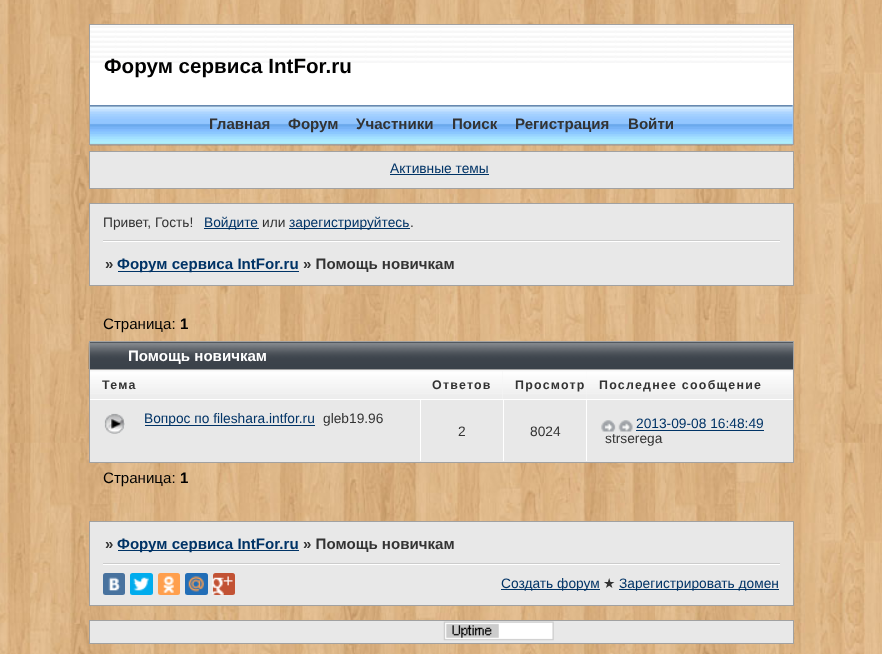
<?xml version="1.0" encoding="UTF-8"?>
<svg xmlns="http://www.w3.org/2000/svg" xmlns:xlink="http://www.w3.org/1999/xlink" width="882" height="654">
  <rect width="100%" height="100%" fill="#ffffff" />
  <image x="0" y="0" width="882" height="654" xlink:href="image1.png" />
  <rect x="89" y="24" width="705" height="1" fill="#a1a1a1" />
  <rect x="793" y="24" width="1" height="121" fill="#a1a1a1" />
  <rect x="89" y="24" width="1" height="121" fill="#a1a1a1" />
  <rect x="90" y="25" width="703" height="80" fill="#ffffff" />
  <image x="90" y="25" width="703" height="38" xlink:href="image2.png" />
  <rect x="90" y="105" width="703" height="39" fill="#a2d0ff" />
  <image x="90" y="105" width="703" height="41" xlink:href="image3.png" />
  <rect x="90" y="144" width="703" height="1" fill="#a1a1a1" />
  <rect x="89.5" y="151.5" width="704" height="37" fill="#e8e8e8" stroke="#a1a1a1" />
  <rect x="390" y="174" width="99" height="1" fill="#003366" />
  <rect x="90" y="204" width="703" height="81" fill="#e8e8e8" />
  <rect x="89" y="203" width="705" height="1" fill="#a1a1a1" />
  <rect x="793" y="203" width="1" height="83" fill="#a1a1a1" />
  <rect x="89" y="203" width="1" height="40" fill="#a1a1a1" />
  <rect x="204" y="228" width="55" height="1" fill="#003366" />
  <rect x="289" y="228" width="121" height="1" fill="#003366" />
  <rect x="103" y="240" width="677" height="1" fill="#cccccc" />
  <rect x="103" y="241" width="677" height="1" fill="#ffffff" />
  <rect x="89" y="285" width="705" height="1" fill="#a1a1a1" />
  <rect x="89" y="240" width="1" height="46" fill="#a1a1a1" />
  <rect x="118" y="271" width="181" height="1" fill="#003366" />
  <rect x="90" y="342" width="703" height="1" fill="#434a52" />
  <image x="88" y="342" width="705" height="27" xlink:href="image4.png" />
  <rect x="89" y="341" width="705" height="1" fill="#a1a1a1" />
  <rect x="793" y="341" width="1" height="28" fill="#a1a1a1" />
  <rect x="89" y="341" width="1" height="28" fill="#a1a1a1" />
  <rect x="90" y="400" width="703" height="62" fill="#e8e8e8" />
  <rect x="89.5" y="369.5" width="704" height="93" fill="none" stroke="#a1a1a1" />
  <rect x="90" y="370" width="330" height="2" fill="#f5f5f5" />
  <image x="90" y="371" width="330" height="28" xlink:href="image5.png" />
  <rect x="420" y="370" width="83" height="29" fill="#f5f5f5" />
  <image x="420" y="371" width="83" height="28" xlink:href="image6.png" />
  <rect x="503" y="370" width="83" height="2" fill="#f5f5f5" />
  <image x="503" y="371" width="83" height="28" xlink:href="image7.png" />
  <rect x="586" y="370" width="207" height="29" fill="#f5f5f5" />
  <image x="586" y="371" width="207" height="28" xlink:href="image8.png" />
  <image x="104" y="413" width="21" height="21" xlink:href="image9.png" />
  <rect x="145" y="425" width="170" height="1" fill="#003366" />
  <rect x="90" y="399" width="703" height="1" fill="#ffffff" />
  <rect x="420" y="399" width="1" height="62" fill="#ffffff" />
  <rect x="503" y="399" width="1" height="62" fill="#ffffff" />
  <rect x="586" y="399" width="1" height="62" fill="#ffffff" />
  <image x="601" y="420" width="15" height="12" xlink:href="image10.png" />
  <image x="618" y="420" width="15" height="12" xlink:href="image11.png" />
  <rect x="636" y="430" width="128" height="1" fill="#003366" />
  <rect x="89" y="521" width="705" height="1" fill="#a1a1a1" />
  <rect x="793" y="563" width="1" height="43" fill="#a1a1a1" />
  <rect x="793" y="521" width="1" height="44" fill="#a1a1a1" />
  <rect x="89" y="605" width="705" height="1" fill="#a1a1a1" />
  <rect x="89" y="563" width="1" height="43" fill="#a1a1a1" />
  <rect x="89" y="521" width="1" height="44" fill="#a1a1a1" />
  <rect x="90" y="522" width="703" height="83" fill="#e8e8e8" />
  <rect x="118" y="550" width="181" height="1" fill="#003366" />
  <rect x="103" y="563" width="677" height="1" fill="#cccccc" />
  <rect x="103" y="564" width="677" height="1" fill="#ffffff" />
  <rect x="89.5" y="620.5" width="704" height="23" fill="#e8e8e8" stroke="#a1a1a1" />
  <rect x="103" y="573" width="22" height="22" rx="2.5" fill="#48729e" />
  <image x="108" y="577" width="13" height="14" xlink:href="image12.png" />
  <rect x="130" y="573" width="23" height="22" rx="2.5" fill="#00aced" />
  <image x="133" y="577" width="16" height="14" xlink:href="image13.png" />
  <rect x="158" y="573" width="22" height="22" rx="2.5" fill="#ff9f4d" />
  <image x="163" y="576" width="11" height="17" xlink:href="image14.png" />
  <rect x="185" y="573" width="23" height="22" rx="2.5" fill="#226eb7" />
  <image x="188" y="576" width="16" height="16" xlink:href="image15.png" />
  <rect x="213" y="573" width="22" height="22" rx="2.5" fill="#c25234" />
  <image x="212" y="576" width="21" height="20" xlink:href="image16.png" />
  <image x="443" y="621" width="111" height="20" xlink:href="image17.png" />
  <rect x="501" y="589" width="99" height="1" fill="#003366" />
  <rect x="619" y="589" width="160" height="1" fill="#003366" />
  <text x="104" y="73" style="font-family: Liberation Sans; font-size: 20.6px; font-weight: bold; fill: #000000">Форум сервиса IntFor.ru</text>
  <text x="209" y="129" style="font-family: Liberation Sans; font-size: 15.1px; font-weight: bold; fill: #333333">Главная</text>
  <text x="288" y="129" style="font-family: Liberation Sans; font-size: 15.1px; font-weight: bold; fill: #333333">Форум</text>
  <text x="356" y="129" style="font-family: Liberation Sans; font-size: 15.1px; font-weight: bold; fill: #333333">Участники</text>
  <text x="452" y="129" style="font-family: Liberation Sans; font-size: 15.1px; font-weight: bold; fill: #333333">Поиск</text>
  <text x="515" y="129" style="font-family: Liberation Sans; font-size: 15.1px; font-weight: bold; fill: #333333">Регистрация</text>
  <text x="628" y="129" style="font-family: Liberation Sans; font-size: 15.1px; font-weight: bold; fill: #333333">Войти</text>
  <text x="390" y="173" style="font-family: Liberation Sans; font-size: 13.75px; fill: #003366">Активные темы</text>
  <text x="103" y="227" style="font-family: Liberation Sans; font-size: 13.75px; fill: #333333">Привет, Гость!</text>
  <text x="204" y="227" style="font-family: Liberation Sans; font-size: 13.75px; fill: #003366">Войдите</text>
  <text x="262" y="227" style="font-family: Liberation Sans; font-size: 13.75px; fill: #333333">или</text>
  <text x="289" y="227" style="font-family: Liberation Sans; font-size: 13.75px; fill: #003366">зарегистрируйтесь</text>
  <text x="410" y="227" style="font-family: Liberation Sans; font-size: 13.75px; fill: #333333">.</text>
  <text x="105" y="269" style="font-family: Liberation Sans; font-size: 15.1px; font-weight: bold; fill: #333333">»</text>
  <text x="117" y="269" style="font-family: Liberation Sans; font-size: 15.1px; font-weight: bold; fill: #003366">Форум сервиса IntFor.ru</text>
  <text x="303" y="269" style="font-family: Liberation Sans; font-size: 15.1px; font-weight: bold; fill: #333333">» Помощь новичкам</text>
  <text x="103" y="329" style="font-family: Liberation Sans; font-size: 15.1px; fill: #000000">Страница:</text>
  <text x="180" y="329" style="font-family: Liberation Sans; font-size: 15.1px; font-weight: bold; fill: #000000">1</text>
  <text x="128" y="361" style="font-family: Liberation Sans; font-size: 15.1px; font-weight: bold; fill: #ffffff">Помощь новичкам</text>
  <text x="102" y="389" style="font-family: Liberation Sans; font-size: 12.4px; font-weight: bold; letter-spacing: 1.25px; fill: #333333">Тема</text>
  <text x="432" y="389" style="font-family: Liberation Sans; font-size: 12.4px; font-weight: bold; letter-spacing: 1.25px; fill: #333333">Ответов</text>
  <text x="515" y="389" style="font-family: Liberation Sans; font-size: 12.4px; font-weight: bold; letter-spacing: 1.25px; fill: #333333">Просмотр</text>
  <text x="599" y="389" style="font-family: Liberation Sans; font-size: 12.4px; font-weight: bold; letter-spacing: 1.25px; fill: #333333">Последнее сообщение</text>
  <text x="144" y="423" style="font-family: Liberation Sans; font-size: 13.75px; fill: #003366">Вопрос по fileshara.intfor.ru</text>
  <text x="323" y="423" style="font-family: Liberation Sans; font-size: 13.75px; fill: #333333">gleb19.96</text>
  <text x="458" y="436" style="font-family: Liberation Sans; font-size: 13.75px; fill: #333333">2</text>
  <text x="530" y="436" style="font-family: Liberation Sans; font-size: 13.75px; fill: #333333">8024</text>
  <text x="636" y="428" style="font-family: Liberation Sans; font-size: 13.75px; fill: #003366">2013-09-08 16:48:49</text>
  <text x="605" y="443" style="font-family: Liberation Sans; font-size: 13.75px; fill: #333333">strserega</text>
  <text x="103" y="483" style="font-family: Liberation Sans; font-size: 15.1px; fill: #000000">Страница:</text>
  <text x="180" y="483" style="font-family: Liberation Sans; font-size: 15.1px; font-weight: bold; fill: #000000">1</text>
  <text x="105" y="549" style="font-family: Liberation Sans; font-size: 15.1px; font-weight: bold; fill: #333333">»</text>
  <text x="117" y="549" style="font-family: Liberation Sans; font-size: 15.1px; font-weight: bold; fill: #003366">Форум сервиса IntFor.ru</text>
  <text x="303" y="549" style="font-family: Liberation Sans; font-size: 15.1px; font-weight: bold; fill: #333333">» Помощь новичкам</text>
  <text x="501" y="588" style="font-family: Liberation Sans; font-size: 13.75px; fill: #003366">Создать форум</text>
  <text x="603" y="588" style="font-family: DejaVu Sans; font-size: 13.75px; fill: #333333">★</text>
  <text x="619" y="588" style="font-family: Liberation Sans; font-size: 13.75px; fill: #003366">Зарегистрировать домен</text>
</svg>
